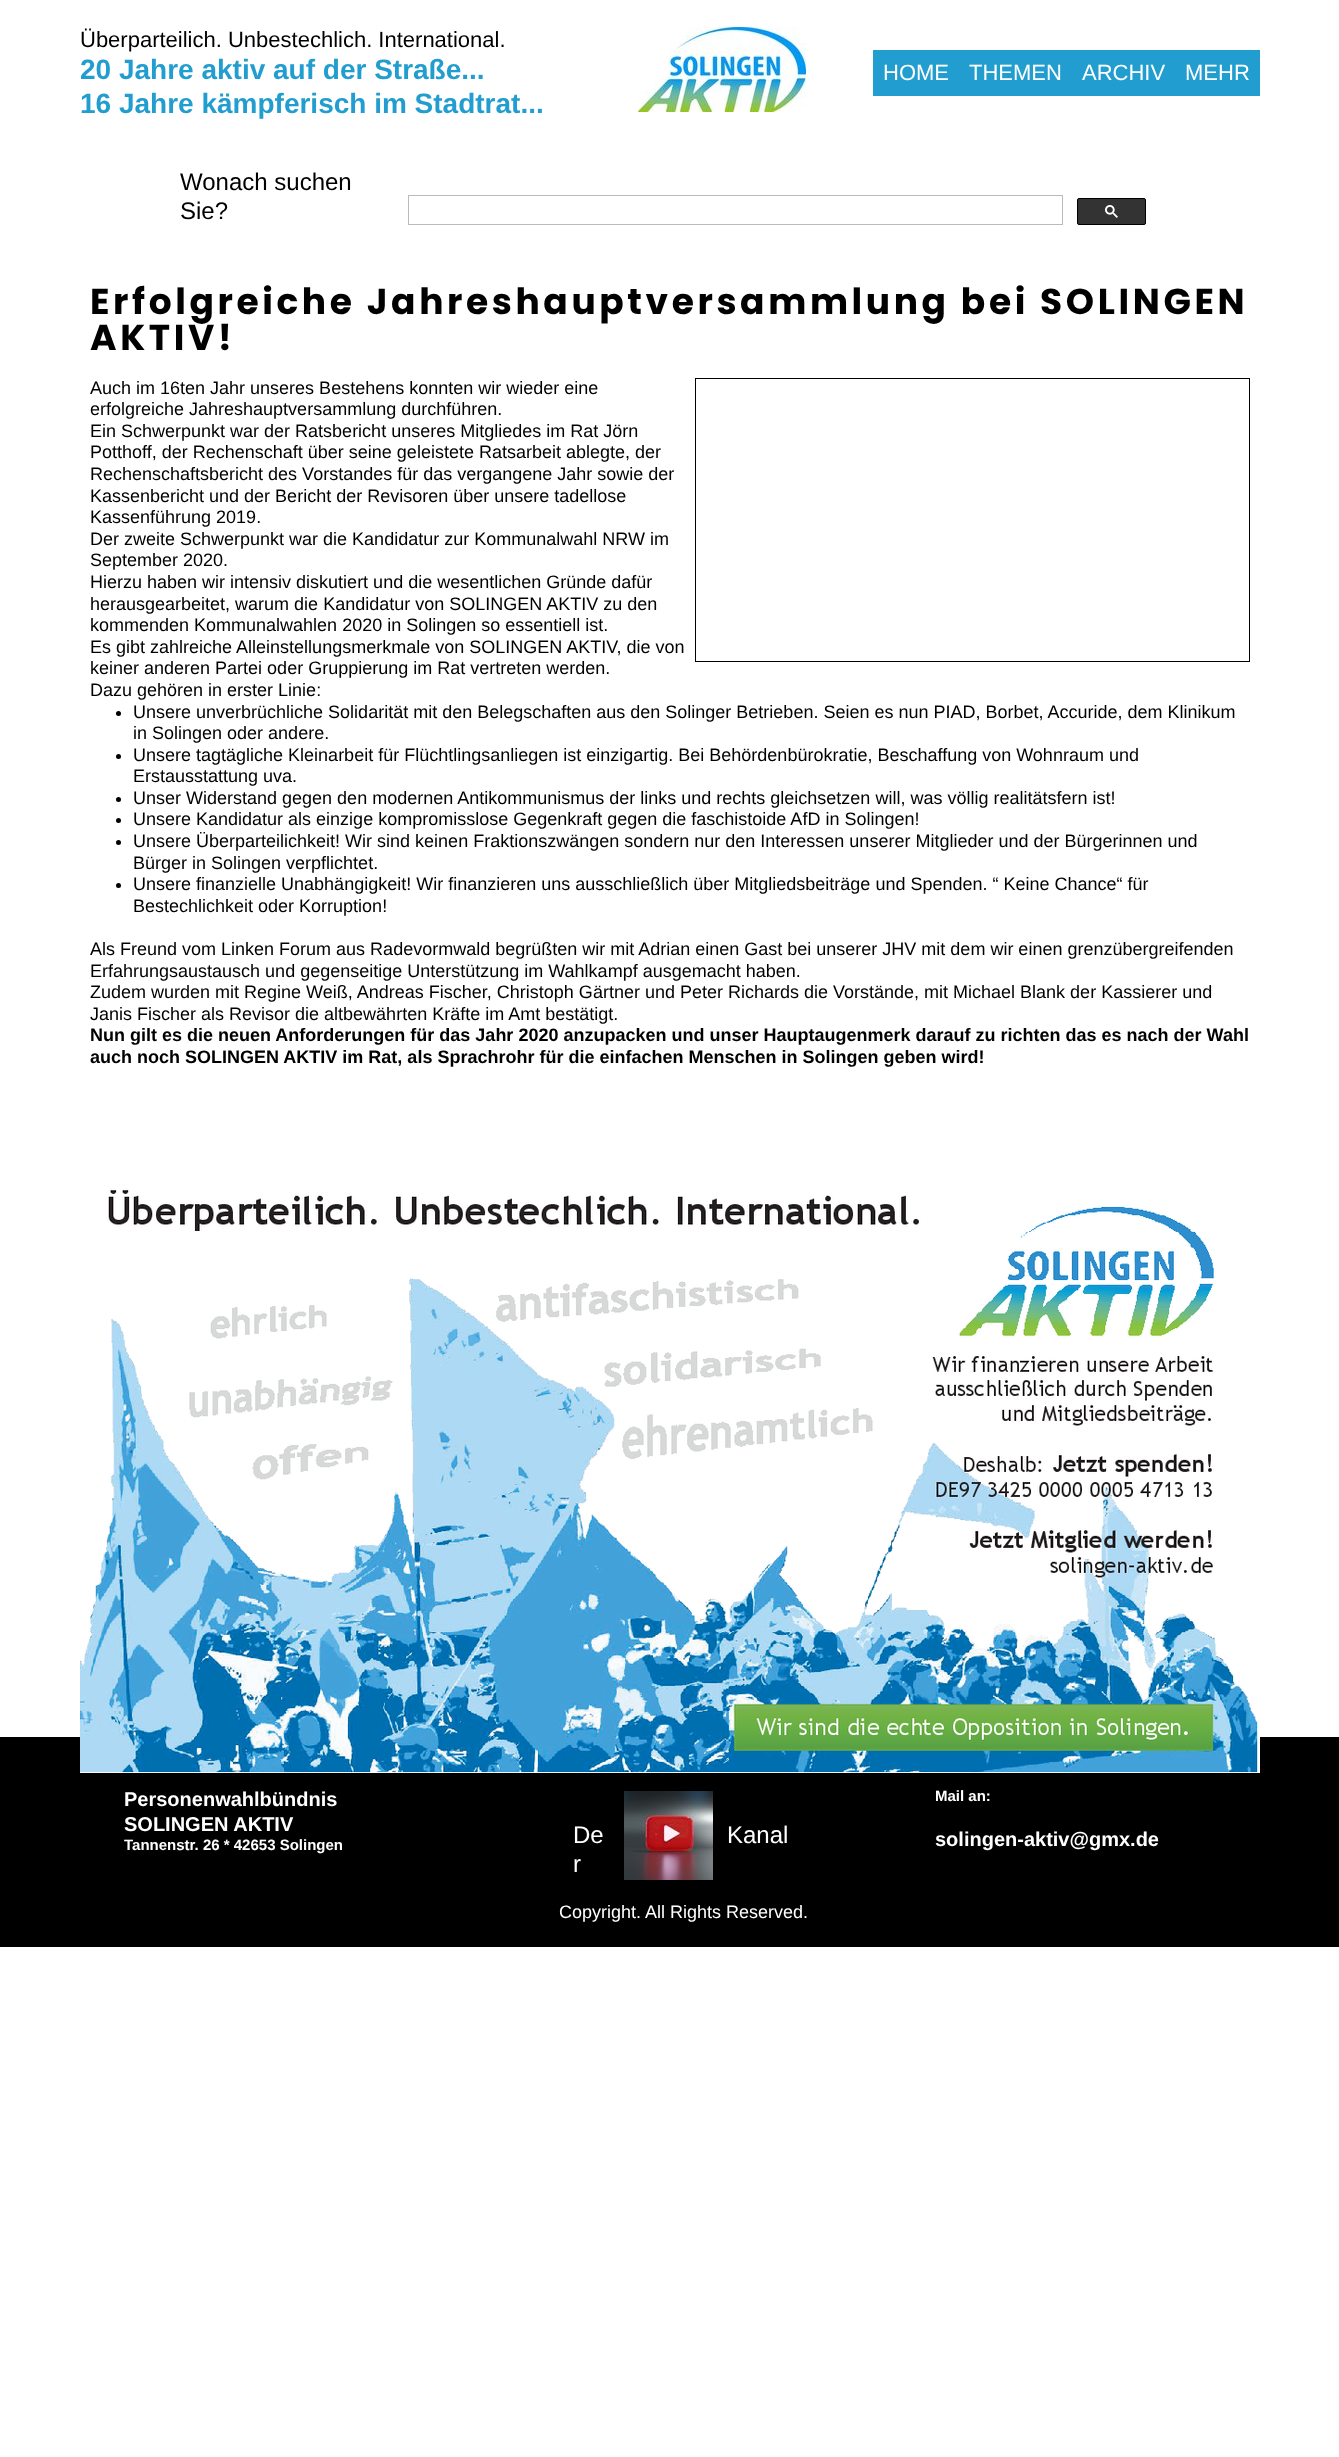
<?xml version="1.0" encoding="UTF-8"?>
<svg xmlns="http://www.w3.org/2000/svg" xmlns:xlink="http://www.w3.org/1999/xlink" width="1339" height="2457">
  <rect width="100%" height="100%" fill="#ffffff" />
  <image x="638" y="27" width="168" height="85" xlink:href="image1.png" />
  <rect x="873" y="50" width="387" height="46" fill="#219dd0" />
  <rect x="408.5" y="195.5" width="654" height="29" fill="none" stroke="#bbbbbb" />
  <rect x="1077.5" y="198.5" width="68" height="26" rx="1.5" fill="#333333" stroke="#000000" />
  <image x="1105" y="205" width="13" height="13" xlink:href="image2.png" />
  <rect x="695.5" y="378.5" width="554" height="283" fill="none" stroke="#000000" />
  <circle cx="118.5" cy="713.5" r="2.5" fill="#000000" />
  <circle cx="118.5" cy="756.5" r="2.5" fill="#000000" />
  <circle cx="118.5" cy="799.5" r="2.5" fill="#000000" />
  <circle cx="118.5" cy="820.5" r="2.5" fill="#000000" />
  <circle cx="118.5" cy="842.5" r="2.5" fill="#000000" />
  <circle cx="118.5" cy="885.5" r="2.5" fill="#000000" />
  <rect y="1737" width="1339" height="210" fill="#000000" />
  <image x="80" y="1188" width="1180" height="585" xlink:href="image3.png" />
  <image x="624" y="1791" width="89" height="89" xlink:href="image4.png" />
  <text x="80" y="47" style="font-family: Liberation Sans; font-size: 22px; fill: #000000">Überparteilich. Unbestechlich. International.</text>
  <text x="80" y="79" style="font-family: Liberation Sans; font-size: 28px; font-weight: bold; fill: #219dd0">20 Jahre aktiv auf der Straße...</text>
  <text x="80" y="113" style="font-family: Liberation Sans; font-size: 28px; font-weight: bold; fill: #219dd0">16 Jahre kämpferisch im Stadtrat...</text>
  <text x="883" y="80" style="font-family: Liberation Sans; font-size: 22px; fill: #ffffff">HOME</text>
  <text x="969" y="80" style="font-family: Liberation Sans; font-size: 22px; fill: #ffffff">THEMEN</text>
  <text x="1082" y="80" style="font-family: Liberation Sans; font-size: 22px; fill: #ffffff">ARCHIV</text>
  <text x="1185" y="80" style="font-family: Liberation Sans; font-size: 22px; fill: #ffffff">MEHR</text>
  <text x="180" y="190" style="font-family: Liberation Sans; font-size: 24px; fill: #000000">Wonach suchen</text>
  <text x="180" y="219" style="font-family: Liberation Sans; font-size: 24px; fill: #000000">Sie?</text>
  <text x="90" y="314" style="font-family: Poppins; font-size: 36px; font-weight: bold; letter-spacing: 3.6px; fill: #000000">Erfolgreiche Jahreshauptversammlung bei SOLINGEN</text>
  <text x="90" y="350" style="font-family: Poppins; font-size: 36px; font-weight: bold; letter-spacing: 3.6px; fill: #000000">AKTIV!</text>
  <text x="90" y="394" style="font-family: Liberation Sans; font-size: 18px; fill: #000000">Auch im 16ten Jahr unseres Bestehens konnten wir wieder eine</text>
  <text x="90" y="415" style="font-family: Liberation Sans; font-size: 18px; fill: #000000">erfolgreiche Jahreshauptversammlung durchführen.</text>
  <text x="90" y="437" style="font-family: Liberation Sans; font-size: 18px; fill: #000000">Ein Schwerpunkt war der Ratsbericht unseres Mitgliedes im Rat Jörn</text>
  <text x="90" y="458" style="font-family: Liberation Sans; font-size: 18px; fill: #000000">Potthoff, der Rechenschaft über seine geleistete Ratsarbeit ablegte, der</text>
  <text x="90" y="480" style="font-family: Liberation Sans; font-size: 18px; fill: #000000">Rechenschaftsbericht des Vorstandes für das vergangene Jahr sowie der</text>
  <text x="90" y="502" style="font-family: Liberation Sans; font-size: 18px; fill: #000000">Kassenbericht und der Bericht der Revisoren über unsere tadellose</text>
  <text x="90" y="523" style="font-family: Liberation Sans; font-size: 18px; fill: #000000">Kassenführung 2019.</text>
  <text x="90" y="545" style="font-family: Liberation Sans; font-size: 18px; fill: #000000">Der zweite Schwerpunkt war die Kandidatur zur Kommunalwahl NRW im</text>
  <text x="90" y="566" style="font-family: Liberation Sans; font-size: 18px; fill: #000000">September 2020.</text>
  <text x="90" y="588" style="font-family: Liberation Sans; font-size: 18px; fill: #000000">Hierzu haben wir intensiv diskutiert und die wesentlichen Gründe dafür</text>
  <text x="90" y="610" style="font-family: Liberation Sans; font-size: 18px; fill: #000000">herausgearbeitet, warum die Kandidatur von SOLINGEN AKTIV zu den</text>
  <text x="90" y="631" style="font-family: Liberation Sans; font-size: 18px; fill: #000000">kommenden Kommunalwahlen 2020 in Solingen so essentiell ist.</text>
  <text x="90" y="653" style="font-family: Liberation Sans; font-size: 18px; fill: #000000">Es gibt zahlreiche Alleinstellungsmerkmale von SOLINGEN AKTIV, die von</text>
  <text x="90" y="674" style="font-family: Liberation Sans; font-size: 18px; fill: #000000">keiner anderen Partei oder Gruppierung im Rat vertreten werden.</text>
  <text x="90" y="696" style="font-family: Liberation Sans; font-size: 18px; fill: #000000">Dazu gehören in erster Linie:</text>
  <text x="133" y="718" style="font-family: Liberation Sans; font-size: 18px; fill: #000000">Unsere unverbrüchliche Solidarität mit den Belegschaften aus den Solinger Betrieben. Seien es nun PIAD, Borbet, Accuride, dem Klinikum</text>
  <text x="133" y="739" style="font-family: Liberation Sans; font-size: 18px; fill: #000000">in Solingen oder andere.</text>
  <text x="133" y="761" style="font-family: Liberation Sans; font-size: 18px; fill: #000000">Unsere tagtägliche Kleinarbeit für Flüchtlingsanliegen ist einzigartig. Bei Behördenbürokratie, Beschaffung von Wohnraum und</text>
  <text x="133" y="782" style="font-family: Liberation Sans; font-size: 18px; fill: #000000">Erstausstattung uva.</text>
  <text x="133" y="804" style="font-family: Liberation Sans; font-size: 18px; fill: #000000">Unser Widerstand gegen den modernen Antikommunismus der links und rechts gleichsetzen will, was völlig realitätsfern ist!</text>
  <text x="133" y="825" style="font-family: Liberation Sans; font-size: 18px; fill: #000000">Unsere Kandidatur als einzige kompromisslose Gegenkraft gegen die faschistoide AfD in Solingen!</text>
  <text x="133" y="847" style="font-family: Liberation Sans; font-size: 18px; fill: #000000">Unsere Überparteilichkeit! Wir sind keinen Fraktionszwängen sondern nur den Interessen unserer Mitglieder und der Bürgerinnen und</text>
  <text x="133" y="869" style="font-family: Liberation Sans; font-size: 18px; fill: #000000">Bürger in Solingen verpflichtet.</text>
  <text x="133" y="890" style="font-family: Liberation Sans; font-size: 18px; fill: #000000">Unsere finanzielle Unabhängigkeit! Wir finanzieren uns ausschließlich über Mitgliedsbeiträge und Spenden. “ Keine Chance“ für</text>
  <text x="133" y="912" style="font-family: Liberation Sans; font-size: 18px; fill: #000000">Bestechlichkeit oder Korruption!</text>
  <text x="90" y="955" style="font-family: Liberation Sans; font-size: 18px; fill: #000000">Als Freund vom Linken Forum aus Radevormwald begrüßten wir mit Adrian einen Gast bei unserer JHV mit dem wir einen grenzübergreifenden</text>
  <text x="90" y="977" style="font-family: Liberation Sans; font-size: 18px; fill: #000000">Erfahrungsaustausch und gegenseitige Unterstützung im Wahlkampf ausgemacht haben.</text>
  <text x="90" y="998" style="font-family: Liberation Sans; font-size: 18px; fill: #000000">Zudem wurden mit Regine Weiß, Andreas Fischer, Christoph Gärtner und Peter Richards die Vorstände, mit Michael Blank der Kassierer und</text>
  <text x="90" y="1020" style="font-family: Liberation Sans; font-size: 18px; fill: #000000">Janis Fischer als Revisor die altbewährten Kräfte im Amt bestätigt.</text>
  <text x="90" y="1041" style="font-family: Liberation Sans; font-size: 18px; font-weight: bold; fill: #000000">Nun gilt es die neuen Anforderungen für das Jahr 2020 anzupacken und unser Hauptaugenmerk darauf zu richten das es nach der Wahl</text>
  <text x="90" y="1063" style="font-family: Liberation Sans; font-size: 18px; font-weight: bold; fill: #000000">auch noch SOLINGEN AKTIV im Rat, als Sprachrohr für die einfachen Menschen in Solingen geben wird!</text>
  <text x="124" y="1806" style="font-family: Liberation Sans; font-size: 20px; font-weight: bold; fill: #ffffff">Personenwahlbündnis</text>
  <text x="124" y="1831" style="font-family: Liberation Sans; font-size: 20px; font-weight: bold; fill: #ffffff">SOLINGEN AKTIV</text>
  <text x="124" y="1850" style="font-family: Liberation Sans; font-size: 15px; font-weight: bold; fill: #ffffff">Tannenstr. 26 * 42653 Solingen</text>
  <text x="573" y="1843" style="font-family: Liberation Sans; font-size: 24px; fill: #ffffff">De</text>
  <text x="573" y="1872" style="font-family: Liberation Sans; font-size: 24px; fill: #ffffff">r</text>
  <text x="727" y="1843" style="font-family: Liberation Sans; font-size: 24px; fill: #ffffff">Kanal</text>
  <text x="935" y="1801" style="font-family: Liberation Sans; font-size: 15px; font-weight: bold; fill: #ffffff">Mail an:</text>
  <text x="935" y="1846" style="font-family: Liberation Sans; font-size: 20px; font-weight: bold; fill: #ffffff">solingen-aktiv@gmx.de</text>
  <text x="559" y="1918" style="font-family: Liberation Sans; font-size: 18px; fill: #ffffff">Copyright. All Rights Reserved.</text>
</svg>
